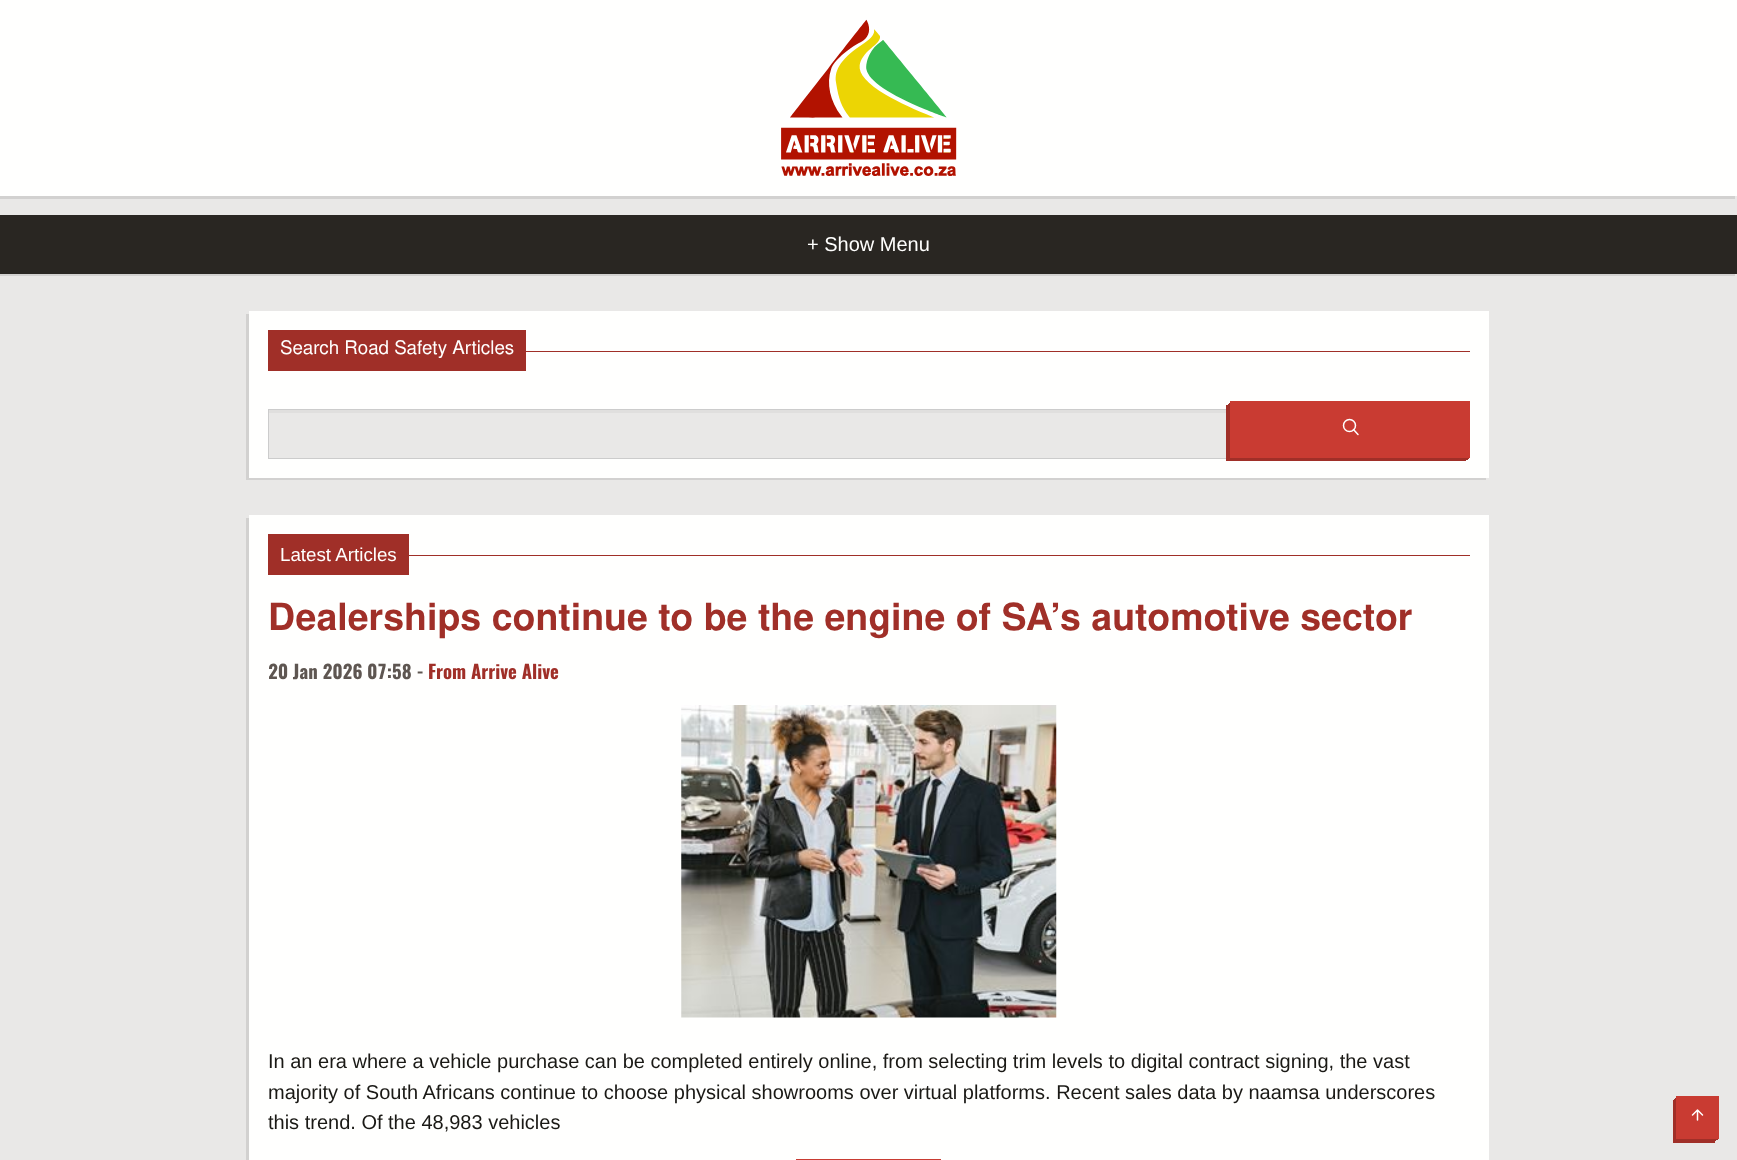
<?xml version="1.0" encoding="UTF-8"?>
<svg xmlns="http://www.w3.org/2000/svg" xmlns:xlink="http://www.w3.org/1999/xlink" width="1737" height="1160">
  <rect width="100%" height="100%" fill="#e9e8e7" />
  <path d="M -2 3 v 196 h 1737 v -3 h -1735 v -193 z" fill="#d2d1d0" />
  <rect width="1737" height="196" fill="#fffffe" />
  <image x="781" y="19" width="176" height="157" xlink:href="image1.png" />
  <path d="M -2 218 v 58 h 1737 v -2 h -1735 v -56 z" fill="#d2d1d0" />
  <rect y="215" width="1737" height="59" fill="#292622" />
  <path d="M 246 314 v 166 h 1240 v -2 h -1237 v -164 z" fill="#d2d1d0" />
  <rect x="249" y="311" width="1240" height="167" fill="#fffffe" />
  <rect x="268" y="330" width="258" height="41" fill="#a02f28" />
  <rect x="526" y="351" width="944" height="1" fill="#a02f28" />
  <rect x="269" y="413" width="957" height="45" fill="#e9e8e7" />
  <rect x="269" y="410" width="960" height="3" fill="#e0dfde" />
  <rect x="268.5" y="409.5" width="961" height="49" fill="none" stroke="#cccccc" />
  <path d="M 1229 403 v 56 h 240 v -1 h -239 v -55 z" fill="#a02f28" />
  <path d="M 1228 404 v 56 h 240 v -2 h -238 v -54 z" fill="#a02f28" />
  <path d="M 1226 405 v 56 h 240 v -3 h -236 v -53 z" fill="#a02f28" />
  <rect x="1230" y="401" width="240" height="57" fill="#c93b32" />
  <circle cx="1349.5" cy="425.5" r="6" fill="none" stroke="#ffffff" stroke-width="1.5" />
  <path d="M 1358 434.5 l -4.5 -5" fill="none" stroke="#ffffff" stroke-width="1.5" stroke-linecap="round" stroke-linejoin="round" />
  <path d="M 246 518 v 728 h 1240 v -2 h -1237 v -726 z" fill="#d2d1d0" />
  <rect x="249" y="515" width="1240" height="645" fill="#fffffe" />
  <rect x="268" y="534" width="141" height="41" fill="#a02f28" />
  <rect x="409" y="555" width="1061" height="1" fill="#a02f28" />
  <image x="681" y="705" width="376" height="313" xlink:href="image2.png" />
  <rect x="796" y="1159" width="145" height="1" fill="#c93b32" />
  <path d="M 1675 1098 v 42 h 43 v -1 h -42 v -41 z" fill="#a02f28" />
  <path d="M 1674 1099 v 42 h 42 v -2 h -40 v -40 z" fill="#a02f28" />
  <path d="M 1673 1100 v 43 h 42 v -4 h -39 v -39 z" fill="#a02f28" />
  <rect x="1676" y="1096" width="43" height="43" fill="#c93b32" />
  <path d="M 1697.5 1120 v -10 m -5 5 l 5 -5 l 5 5" fill="none" stroke="#ffffff" stroke-width="1.5" stroke-linecap="round" stroke-linejoin="round" />
  <text x="807" y="251" style="font-family: Liberation Sans; font-size: 20px; fill: #fffffe">+ Show Menu</text>
  <text x="280" y="354" style="font-family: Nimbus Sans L; font-size: 18.75px; fill: #fffffe">Search Road Safety Articles</text>
  <text x="280" y="561" style="font-family: Liberation Sans; font-size: 18.75px; fill: #fffffe">Latest Articles</text>
  <text x="268" y="630" style="font-family: Nimbus Sans L; font-size: 37.5px; font-weight: bold; fill: #a02f28">Dealerships continue to be the engine of SA’s automotive sector</text>
  <text x="268" y="679" style="font-family: Oswald; font-size: 18.75px; font-weight: bold; fill: #5e5651">20 Jan 2026 07:58 -</text>
  <text x="428" y="679" style="font-family: Oswald; font-size: 18.75px; font-weight: bold; fill: #a02f28">From Arrive Alive</text>
  <text x="268" y="1068" style="font-family: Liberation Sans; font-size: 20px; fill: #1a1915">In an era where a vehicle purchase can be completed entirely online, from selecting trim levels to digital contract signing, the vast</text>
  <text x="268" y="1099" style="font-family: Liberation Sans; font-size: 20px; fill: #1a1915">majority of South Africans continue to choose physical showrooms over virtual platforms. Recent sales data by naamsa underscores</text>
  <text x="268" y="1129" style="font-family: Liberation Sans; font-size: 20px; fill: #1a1915">this trend. Of the 48,983 vehicles</text>
</svg>
